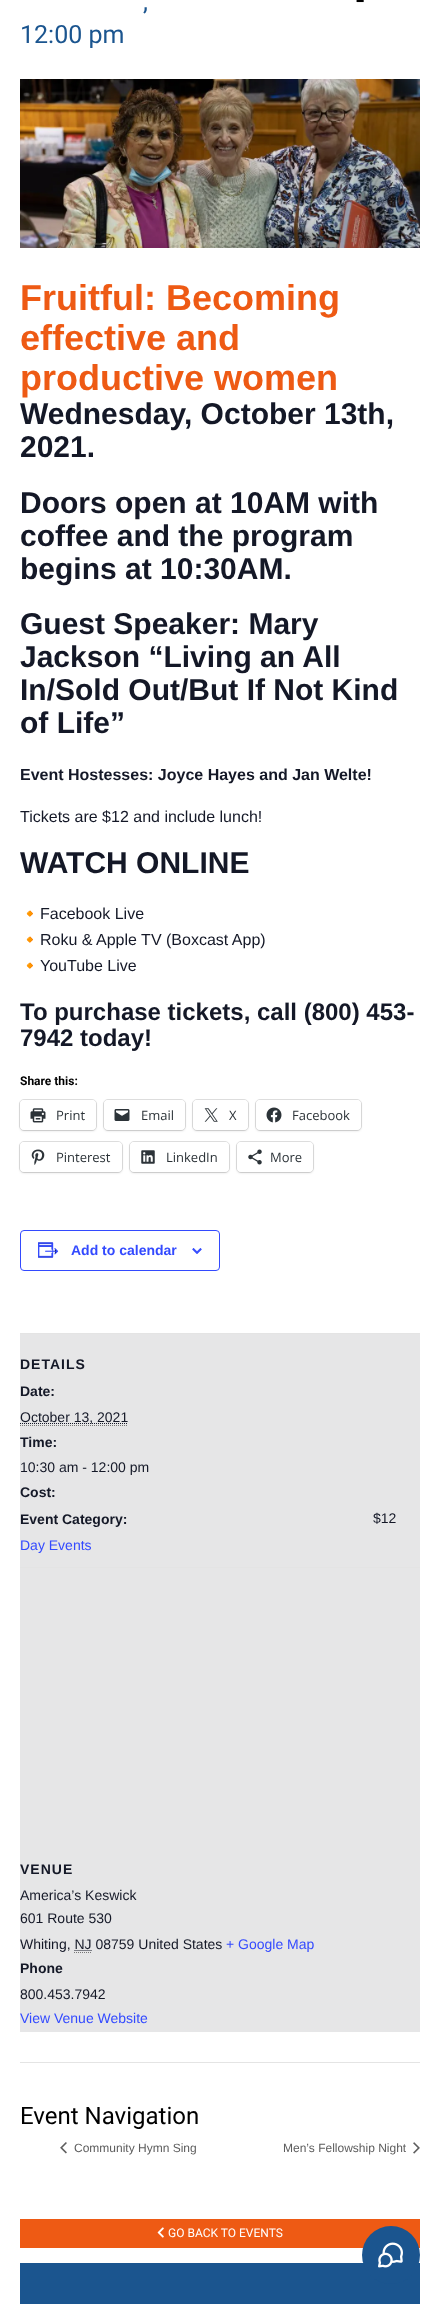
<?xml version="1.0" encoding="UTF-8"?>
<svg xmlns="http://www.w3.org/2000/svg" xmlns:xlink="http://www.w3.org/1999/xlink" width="440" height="2304">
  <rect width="100%" height="100%" fill="#ffffff" />
  <image x="20" y="79" width="400" height="169" xlink:href="image1.png" />
  <rect x="19.5" y="1099.5" width="77" height="31" rx="4.5" fill="none" stroke="#e0e0e0" />
  <rect x="20" y="1101" width="76" height="30" rx="4" fill="#000000" fill-opacity="0.12" filter="blur(1px)" />
  <rect x="20" y="1100" width="76" height="30" rx="4" fill="#ffffff" />
  <image x="30" y="1108" width="16" height="15" xlink:href="image2.png" />
  <rect x="103.5" y="1099.5" width="82" height="31" rx="4.5" fill="none" stroke="#e0e0e0" />
  <rect x="104" y="1101" width="81" height="30" rx="4" fill="#000000" fill-opacity="0.12" filter="blur(1px)" />
  <rect x="104" y="1100" width="81" height="30" rx="4" fill="#ffffff" />
  <image x="114" y="1109" width="16" height="12" xlink:href="image3.png" />
  <rect x="192.5" y="1099.5" width="56" height="31" rx="4.5" fill="none" stroke="#e0e0e0" />
  <rect x="193" y="1101" width="55" height="30" rx="4" fill="#000000" fill-opacity="0.12" filter="blur(1px)" />
  <rect x="193" y="1100" width="55" height="30" rx="4" fill="#ffffff" />
  <image x="204" y="1108" width="14" height="14" xlink:href="image4.png" />
  <rect x="255.5" y="1099.5" width="106" height="31" rx="4.5" fill="none" stroke="#e0e0e0" />
  <rect x="256" y="1101" width="105" height="30" rx="4" fill="#000000" fill-opacity="0.12" filter="blur(1px)" />
  <rect x="256" y="1100" width="105" height="30" rx="4" fill="#ffffff" />
  <image x="266" y="1107" width="16" height="16" xlink:href="image5.png" />
  <rect x="19.5" y="1141.5" width="103" height="31" rx="4.5" fill="none" stroke="#e0e0e0" />
  <rect x="20" y="1143" width="102" height="30" rx="4" fill="#000000" fill-opacity="0.12" filter="blur(1px)" />
  <rect x="20" y="1142" width="102" height="30" rx="4" fill="#ffffff" />
  <image x="31" y="1149" width="14" height="16" xlink:href="image6.png" />
  <rect x="129.5" y="1141.5" width="100" height="31" rx="4.5" fill="none" stroke="#e0e0e0" />
  <rect x="130" y="1143" width="99" height="30" rx="4" fill="#000000" fill-opacity="0.12" filter="blur(1px)" />
  <rect x="130" y="1142" width="99" height="30" rx="4" fill="#ffffff" />
  <image x="141" y="1150" width="14" height="14" xlink:href="image7.png" />
  <rect x="236.5" y="1141.5" width="77" height="31" rx="4.5" fill="none" stroke="#e0e0e0" />
  <rect x="237" y="1143" width="76" height="30" rx="4" fill="#000000" fill-opacity="0.12" filter="blur(1px)" />
  <rect x="237" y="1142" width="76" height="30" rx="4" fill="#ffffff" />
  <image x="248" y="1149" width="14" height="16" xlink:href="image8.png" />
  <rect x="20.5" y="1230.5" width="199" height="40" rx="3.5" fill="none" stroke="#334aff" />
  <image x="38" y="1242" width="21" height="16" xlink:href="image9.png" />
  <image x="192" y="1248" width="10" height="6" xlink:href="image10.png" />
  <rect x="20" y="1334" width="400" height="698" fill="#e6e6e7" />
  <rect x="20" y="1333" width="400" height="1" fill="#e4e4e4" />
  <path d="M 20 1425.5 h 108" fill="none" stroke="#777777" stroke-dasharray="1 1" />
  <path d="M 20 1423.5 h 108" fill="none" stroke="#141827" stroke-dasharray="1 1" />
  <rect x="20" y="1567" width="400" height="1" fill="#e4e4e4" />
  <path d="M 74 1952.5 h 18" fill="none" stroke="#777777" stroke-dasharray="1 1" />
  <path d="M 74.5 1950.5 h 17" fill="none" stroke="#141827" stroke-dasharray="1 1" />
  <rect x="20" y="2062" width="400" height="1" fill="#e4e4e4" />
  <image x="60" y="2142" width="7" height="12" xlink:href="image11.png" />
  <image x="413" y="2142" width="7" height="12" xlink:href="image12.png" />
  <rect x="20" y="2219" width="400" height="29" fill="#ee5a14" />
  <image x="157" y="2227" width="7" height="11" xlink:href="image13.png" />
  <rect x="20" y="2263" width="400" height="41" fill="#1b558f" />
  <circle cx="391" cy="2255" r="29" fill="#1b558f" />
  <image x="378" y="2242" width="25" height="26" xlink:href="image14.png" />
  <text x="356" y="10" style="font-family: Roboto; font-size: 30px; fill: #000000">-</text>
  <text x="143" y="10" style="font-family: Roboto; font-size: 25px; fill: #1b558f">,</text>
  <text x="20" y="43" style="font-family: Roboto; font-size: 25px; fill: #1b558f">12:00 pm</text>
  <text x="20" y="310" style="font-family: Liberation Sans; font-size: 36px; font-weight: bold; fill: #ee5a14">Fruitful: Becoming</text>
  <text x="20" y="350" style="font-family: Liberation Sans; font-size: 36px; font-weight: bold; fill: #ee5a14">effective and</text>
  <text x="20" y="390" style="font-family: Liberation Sans; font-size: 36px; font-weight: bold; fill: #ee5a14">productive women</text>
  <text x="20" y="424" style="font-family: Liberation Sans; font-size: 30px; font-weight: bold; fill: #141827">Wednesday, October 13th,</text>
  <text x="20" y="457" style="font-family: Liberation Sans; font-size: 30px; font-weight: bold; fill: #141827">2021.</text>
  <text x="20" y="513" style="font-family: Liberation Sans; font-size: 30px; font-weight: bold; fill: #141827">Doors open at 10AM with</text>
  <text x="20" y="546" style="font-family: Liberation Sans; font-size: 30px; font-weight: bold; fill: #141827">coffee and the program</text>
  <text x="20" y="579" style="font-family: Liberation Sans; font-size: 30px; font-weight: bold; fill: #141827">begins at 10:30AM.</text>
  <text x="20" y="634" style="font-family: Liberation Sans; font-size: 30px; font-weight: bold; fill: #141827">Guest Speaker: Mary</text>
  <text x="20" y="667" style="font-family: Liberation Sans; font-size: 30px; font-weight: bold; fill: #141827">Jackson “Living an All</text>
  <text x="20" y="700" style="font-family: Liberation Sans; font-size: 30px; font-weight: bold; fill: #141827">In/Sold Out/But If Not Kind</text>
  <text x="20" y="733" style="font-family: Liberation Sans; font-size: 30px; font-weight: bold; fill: #141827">of Life”</text>
  <text x="20" y="780" style="font-family: Liberation Sans; font-size: 16px; font-weight: bold; fill: #141827">Event Hostesses: Joyce Hayes and Jan Welte!</text>
  <text x="20" y="822" style="font-family: Liberation Sans; font-size: 16px; fill: #141827">Tickets are $12 and include lunch!</text>
  <text x="20" y="873" style="font-family: Liberation Sans; font-size: 30px; font-weight: bold; fill: #141827">WATCH ONLINE</text>
  <text x="20" y="919" style="font-family: Noto Color Emoji; font-size: 16px; fill: #141827">🔸</text>
  <text x="40" y="919" style="font-family: Liberation Sans; font-size: 16px; fill: #141827">Facebook Live</text>
  <text x="20" y="945" style="font-family: Noto Color Emoji; font-size: 16px; fill: #141827">🔸</text>
  <text x="40" y="945" style="font-family: Liberation Sans; font-size: 16px; fill: #141827">Roku &amp; Apple TV (Boxcast App)</text>
  <text x="20" y="971" style="font-family: Noto Color Emoji; font-size: 16px; fill: #141827">🔸</text>
  <text x="40" y="971" style="font-family: Liberation Sans; font-size: 16px; fill: #141827">YouTube Live</text>
  <text x="20" y="1020" style="font-family: Liberation Sans; font-size: 24px; font-weight: bold; fill: #141827">To purchase tickets, call (800) 453-</text>
  <text x="20" y="1046" style="font-family: Liberation Sans; font-size: 24px; font-weight: bold; fill: #141827">7942 today!</text>
  <text x="20" y="1085" style="font-family: Roboto; font-size: 12px; font-weight: bold; fill: #000000">Share this:</text>
  <text x="56" y="1120" style="font-family: Open Sans; font-size: 13px; fill: #2c3338">Print</text>
  <text x="141" y="1120" style="font-family: Open Sans; font-size: 13px; fill: #2c3338">Email</text>
  <text x="229" y="1120" style="font-family: Open Sans; font-size: 13px; fill: #2c3338">X</text>
  <text x="292" y="1120" style="font-family: Open Sans; font-size: 13px; fill: #2c3338">Facebook</text>
  <text x="56" y="1162" style="font-family: Open Sans; font-size: 13px; fill: #2c3338">Pinterest</text>
  <text x="166" y="1162" style="font-family: Open Sans; font-size: 13px; fill: #2c3338">LinkedIn</text>
  <text x="270" y="1162" style="font-family: Open Sans; font-size: 13px; fill: #2c3338">More</text>
  <text x="71" y="1255" style="font-family: Liberation Sans; font-size: 14px; font-weight: bold; fill: #334aff">Add to calendar</text>
  <text x="20" y="1369" style="font-family: Liberation Sans; font-size: 14px; font-weight: bold; letter-spacing: 1px; fill: #141827">DETAILS</text>
  <text x="20" y="1396" style="font-family: Liberation Sans; font-size: 14px; font-weight: bold; fill: #141827">Date:</text>
  <text x="20" y="1422" style="font-family: Liberation Sans; font-size: 14px; fill: #141827">October 13, 2021</text>
  <text x="20" y="1447" style="font-family: Liberation Sans; font-size: 14px; font-weight: bold; fill: #141827">Time:</text>
  <text x="20" y="1472" style="font-family: Liberation Sans; font-size: 14px; fill: #141827">10:30 am - 12:00 pm</text>
  <text x="20" y="1497" style="font-family: Liberation Sans; font-size: 14px; font-weight: bold; fill: #141827">Cost:</text>
  <text x="373" y="1523" style="font-family: Liberation Sans; font-size: 14px; fill: #141827">$12</text>
  <text x="20" y="1524" style="font-family: Liberation Sans; font-size: 14px; font-weight: bold; fill: #141827">Event Category:</text>
  <text x="20" y="1550" style="font-family: Liberation Sans; font-size: 14px; fill: #334aff">Day Events</text>
  <text x="20" y="1874" style="font-family: Liberation Sans; font-size: 14px; font-weight: bold; letter-spacing: 1px; fill: #141827">VENUE</text>
  <text x="20" y="1900" style="font-family: Liberation Sans; font-size: 14px; fill: #141827">America’s Keswick</text>
  <text x="20" y="1923" style="font-family: Liberation Sans; font-size: 14px; fill: #141827">601 Route 530</text>
  <text x="20" y="1949" style="font-family: Liberation Sans; font-size: 14px; fill: #141827">Whiting, NJ 08759 United States</text>
  <text x="226" y="1949" style="font-family: Liberation Sans; font-size: 14px; fill: #334aff">+ Google Map</text>
  <text x="20" y="1973" style="font-family: Liberation Sans; font-size: 14px; font-weight: bold; fill: #141827">Phone</text>
  <text x="20" y="1999" style="font-family: Liberation Sans; font-size: 14px; fill: #141827">800.453.7942</text>
  <text x="20" y="2023" style="font-family: Liberation Sans; font-size: 14px; fill: #334aff">View Venue Website</text>
  <text x="20" y="2124" style="font-family: Roboto; font-size: 24px; fill: #000000">Event Navigation</text>
  <text x="74" y="2152" style="font-family: Liberation Sans; font-size: 12px; fill: #5d5d5d">Community Hymn Sing</text>
  <text x="283" y="2152" style="font-family: Liberation Sans; font-size: 12px; fill: #5d5d5d">Men’s Fellowship Night</text>
  <text x="168" y="2237" style="font-family: Roboto; font-size: 12px; fill: #ffffff">GO BACK TO EVENTS</text>
</svg>
